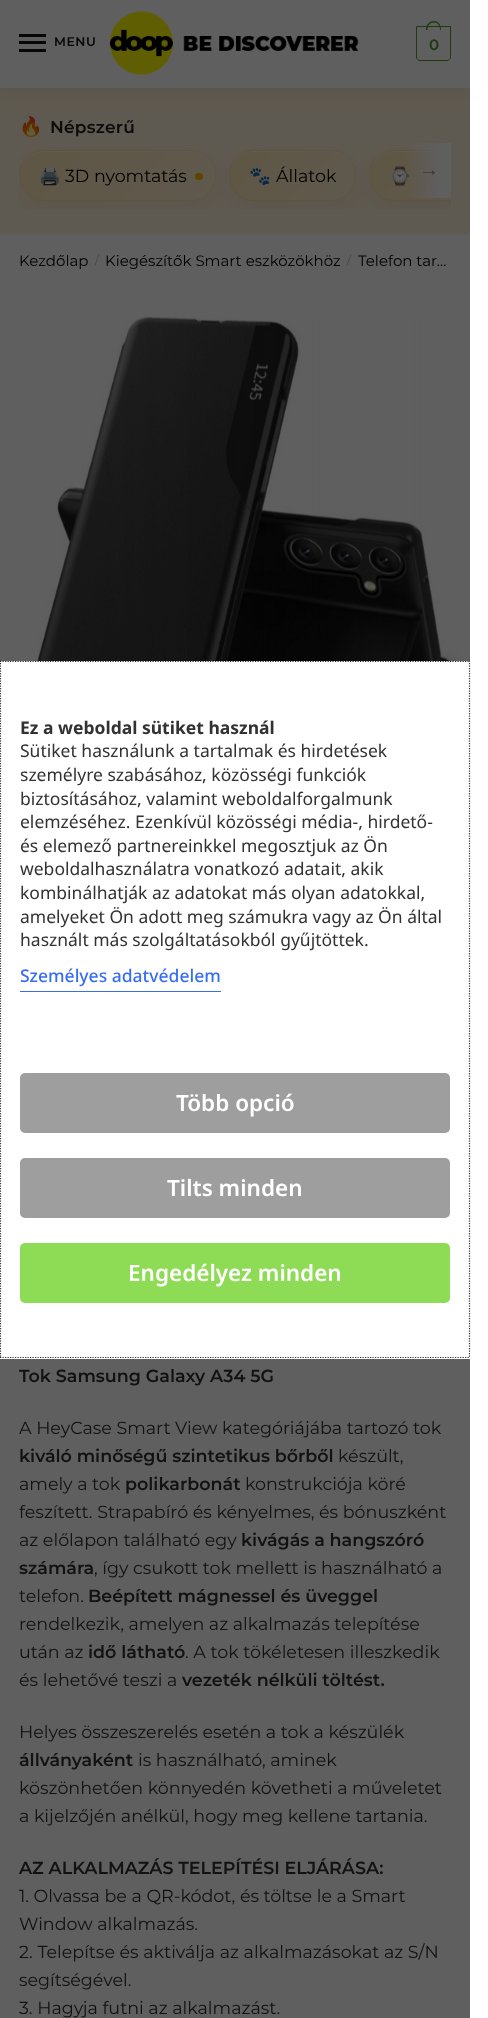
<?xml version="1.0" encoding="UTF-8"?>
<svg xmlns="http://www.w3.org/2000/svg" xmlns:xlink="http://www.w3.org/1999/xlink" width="488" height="2018">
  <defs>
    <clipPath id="clip1"><rect x="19" y="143" width="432" height="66" /></clipPath>
    <clipPath id="clip2"><rect x="229" y="150" width="127" height="51" rx="25.5" /></clipPath>
    <linearGradient id="g1" gradientUnits="userSpaceOnUse" x1="124" y1="132" x2="211" y2="219"><stop offset="0" stop-color="#ffe7b6" /><stop offset="1" stop-color="#ffefd1" /></linearGradient>
    <linearGradient id="g2" gradientUnits="userSpaceOnUse" x1="249" y1="132" x2="336" y2="219"><stop offset="0" stop-color="#ffe7b6" /><stop offset="1" stop-color="#ffefd2" /></linearGradient>
    <linearGradient id="g3" gradientUnits="userSpaceOnUse" x1="249" y1="83" x2="336" y2="170"><stop offset="0" stop-color="#ffe7b6" /><stop offset="1" stop-color="#ffefd1" /></linearGradient>
    <linearGradient id="g4" gradientUnits="userSpaceOnUse" x1="374" y1="132" x2="461" y2="219"><stop offset="0" stop-color="#ffe7b6" /><stop offset="1" stop-color="#ffefd1" /></linearGradient>
    <linearGradient id="g5" gradientUnits="userSpaceOnUse" x1="249" y1="181" x2="336" y2="268"><stop offset="0" stop-color="#ffe7b6" /><stop offset="1" stop-color="#ffefd2" /></linearGradient>
    <clipPath id="clip3"><rect x="19" y="150" width="197" height="51" rx="25.5" /></clipPath>
    <linearGradient id="g6" gradientUnits="userSpaceOnUse" x1="57" y1="66" x2="178" y2="188"><stop offset="0" stop-color="#ffe7b6" /><stop offset="1" stop-color="#ffefd2" /></linearGradient>
    <linearGradient id="g7" gradientUnits="userSpaceOnUse" x1="-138" y1="115" x2="-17" y2="237"><stop offset="0" stop-color="#ffe7b6" /><stop offset="1" stop-color="#ffefd1" /></linearGradient>
    <linearGradient id="g8" gradientUnits="userSpaceOnUse" x1="57" y1="115" x2="178" y2="237"><stop offset="0" stop-color="#ffe7b6" /><stop offset="1" stop-color="#ffefd2" /></linearGradient>
    <linearGradient id="g9" gradientUnits="userSpaceOnUse" x1="252" y1="115" x2="373" y2="237"><stop offset="0" stop-color="#fee7b6" /><stop offset="1" stop-color="#feeed1" /></linearGradient>
    <linearGradient id="g10" gradientUnits="userSpaceOnUse" x1="57" y1="163" x2="178" y2="285"><stop offset="0" stop-color="#ffe7b6" /><stop offset="1" stop-color="#ffefd2" /></linearGradient>
    <clipPath id="clip4"><rect x="369" y="150" width="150" height="51" rx="25.5" /></clipPath>
    <linearGradient id="g11" gradientUnits="userSpaceOnUse" x1="395" y1="78" x2="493" y2="176"><stop offset="0" stop-color="#ffe7b6" /><stop offset="1" stop-color="#ffefd2" /></linearGradient>
    <linearGradient id="g12" gradientUnits="userSpaceOnUse" x1="247" y1="127" x2="345" y2="225"><stop offset="0" stop-color="#fee7b6" /><stop offset="1" stop-color="#feeed1" /></linearGradient>
    <linearGradient id="g13" gradientUnits="userSpaceOnUse" x1="395" y1="127" x2="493" y2="225"><stop offset="0" stop-color="#ffe7b6" /><stop offset="1" stop-color="#ffefd2" /></linearGradient>
    <linearGradient id="g14" gradientUnits="userSpaceOnUse" x1="395" y1="175" x2="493" y2="273"><stop offset="0" stop-color="#ffe7b6" /><stop offset="1" stop-color="#ffefd2" /></linearGradient>
    <clipPath id="clip5"><rect x="19" y="143" width="432" height="66" /></clipPath>
    <linearGradient id="g15" gradientUnits="userSpaceOnUse" x1="406" y1="170" x2="451" y2="170"><stop offset="0" stop-color="#ffffff" stop-opacity="0" /><stop offset="0.75" stop-color="#ffffff" /></linearGradient>
  </defs>
  <rect width="100%" height="100%" fill="#ffffff" />
  <rect y="88" width="470" height="146" fill="#fff0d8" />
  <rect y="1" width="470" height="88" fill="#000000" fill-opacity="0.08" filter="blur(9.5px)" />
  <rect width="470" height="88" fill="#ffffff" />
  <rect x="19" y="34" width="27" height="3" fill="#111111" />
  <rect x="19" y="41" width="27" height="3" fill="#111111" />
  <rect x="19" y="49" width="27" height="3" fill="#111111" />
  <image x="109" y="11" width="250" height="64" xlink:href="image1.png" />
  <path d="M 416.5 26.5 h 34 v 30.5 c 0 2 -1.5 3.5 -3.5 3.5 h -27 c -2 0 -3.5 -1.5 -3.5 -3.5 z" fill="none" stroke="#589a2c" />
  <path d="M 434 21 c 5 0 7 4.5 7 9 h -15 c 0 -4.5 2.5 -9 8 -9 z m 0 1.5 c 4 0 6 3.5 6 7.5 h -12.5 c 0 -4 2 -7.5 6.5 -7.5 z" fill="#589a2c" fill-rule="evenodd" />
  <rect x="470" width="11" height="95" fill="#ffffff" />
  <g clip-path="url(#clip1)">
    <rect x="229" y="158" width="127" height="51" rx="25.5" fill="#000000" fill-opacity="0.05" filter="blur(10px)" />
  </g>
  <g clip-path="url(#clip2)">
    <rect x="229" y="168" width="1" height="15" fill="url(#g1)" />
    <rect x="230" y="151" width="125" height="49" fill="url(#g2)" />
  </g>
  <path d="M 254 152 h 77 c 13 0 24 11 24 24 c 0 -14 -11 -25 -25 -25 h -76 c -13 0 -24 11 -24 25 c 0 -13 11 -24 24 -24 z" fill="#ffffff" fill-opacity="0.6" />
  <g clip-path="url(#clip2)">
    <rect x="247" y="150" width="91" height="1" fill="url(#g3)" />
    <rect x="355" y="168" width="1" height="15" fill="url(#g4)" />
    <rect x="247" y="200" width="91" height="1" fill="url(#g5)" />
  </g>
  <rect x="229.5" y="150.5" width="126" height="50" rx="25" fill="none" stroke="#ffc85a" stroke-opacity="0.35" />
  <g clip-path="url(#clip1)">
    <rect x="19" y="158" width="197" height="51" rx="25.5" fill="#000000" fill-opacity="0.05" filter="blur(10px)" />
  </g>
  <g clip-path="url(#clip3)">
    <rect x="37" y="150" width="161" height="1" fill="url(#g6)" />
    <rect x="19" y="168" width="1" height="15" fill="url(#g7)" />
    <rect x="20" y="151" width="195" height="49" fill="url(#g8)" />
    <rect x="215" y="168" width="1" height="15" fill="url(#g9)" />
    <rect x="37" y="200" width="161" height="1" fill="url(#g10)" />
  </g>
  <path d="M 44 152 h 147 c 13 0 24 11 24 24 c 0 -14 -11 -25 -25 -25 h -146 c -13 0 -24 11 -24 25 c 0 -13 11 -24 24 -24 z" fill="#ffffff" fill-opacity="0.6" />
  <rect x="19.5" y="150.5" width="196" height="50" rx="25" fill="none" stroke="#ffc85a" stroke-opacity="0.35" />
  <rect x="195" y="173" width="8" height="7" rx="3.5" fill="#ffb400" />
  <g clip-path="url(#clip1)">
    <rect x="369" y="158" width="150" height="51" rx="25.5" fill="#000000" fill-opacity="0.05" filter="blur(10px)" />
  </g>
  <g clip-path="url(#clip4)">
    <rect x="387" y="150" width="53" height="1" fill="url(#g11)" />
    <rect x="369" y="168" width="1" height="15" fill="url(#g12)" />
    <rect x="370" y="151" width="81" height="49" fill="url(#g13)" />
    <rect x="387" y="200" width="64" height="1" fill="url(#g14)" />
  </g>
  <g clip-path="url(#clip5)">
    <path d="M 394 152 h 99 c 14 0 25 11 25 24 c 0 -14 -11 -25 -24 -25 h -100 c -13 0 -24 11 -24 25 c 0 -13 11 -24 24 -24 z" fill="#ffffff" fill-opacity="0.6" />
    <rect x="369.5" y="150.5" width="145" height="50" rx="25" fill="none" stroke="#ffc85a" stroke-opacity="0.35" />
  </g>
  <image x="23" y="316" width="440" height="345" xlink:href="image2.png" />
  <text x="54" y="46" style="font-family: Montserrat; font-size: 12.5px; font-weight: 600; letter-spacing: 0.5px; fill: #111111">MENU</text>
  <text x="429" y="50" style="font-family: Montserrat; font-size: 15px; font-weight: 600; letter-spacing: -1px; fill: #589a2c">0</text>
  <text x="19" y="133" style="font-family: Noto Color Emoji; font-size: 19px; font-weight: bold; letter-spacing: 0.25px; fill: #222222">🔥</text>
  <text x="50" y="133" style="font-family: Montserrat; font-size: 17px; font-weight: 600; letter-spacing: 0.25px; fill: #222222">Népszerű</text>
  <text x="39" y="182" style="font-family: Noto Color Emoji; font-size: 17.5px; fill: #000000">🖨️</text>
  <text x="65" y="182" style="font-family: Montserrat; font-size: 17.5px; fill: #000000">3D nyomtatás</text>
  <text x="249" y="182" style="font-family: Noto Color Emoji; font-size: 17.5px; fill: #000000">🐾</text>
  <text x="276" y="182" style="font-family: Montserrat; font-size: 17.5px; fill: #000000">Állatok</text>
  <text x="389" y="182" style="font-family: Noto Color Emoji; font-size: 17.5px; fill: #000000">⌚</text>
  <rect x="407" y="143" width="44" height="55" fill="url(#g15)" />
  <text x="419" y="176" style="font-family: Liberation Serif; font-size: 20px; fill: #9a9791">→</text>
  <text x="19" y="266" style="font-family: Montserrat; font-size: 15px; fill: #000000">Kezdőlap</text>
  <text x="95" y="264" style="font-family: Montserrat; font-size: 12px; fill: #bbbbbb">/</text>
  <text x="105" y="266" style="font-family: Montserrat; font-size: 15px; fill: #000000">Kiegészítők Smart eszközökhöz</text>
  <text x="347" y="264" style="font-family: Montserrat; font-size: 12px; fill: #bbbbbb">/</text>
  <text x="358" y="266" style="font-family: Montserrat; font-size: 15px; fill: #000000">Telefon tar…</text>
  <text x="19" y="1382" style="font-family: Montserrat; font-size: 17.5px; font-weight: 600; fill: #323232">Tok Samsung Galaxy A34 5G</text>
  <text x="19" y="1434" style="font-family: Montserrat; font-size: 17.5px; fill: #323232">A HeyCase Smart View kategóriájába tartozó tok</text>
  <text x="19" y="1462" style="font-family: Montserrat; font-size: 17.5px; font-weight: 600; fill: #323232">kiváló minőségű szintetikus bőrből</text>
  <text x="338" y="1462" style="font-family: Montserrat; font-size: 17.5px; fill: #323232">készült,</text>
  <text x="19" y="1490" style="font-family: Montserrat; font-size: 17.5px; fill: #323232">amely a tok</text>
  <text x="125" y="1490" style="font-family: Montserrat; font-size: 17.5px; font-weight: 600; fill: #323232">polikarbonát</text>
  <text x="245" y="1490" style="font-family: Montserrat; font-size: 17.5px; fill: #323232">konstrukciója köré</text>
  <text x="19" y="1518" style="font-family: Montserrat; font-size: 17.5px; fill: #323232">feszített. Strapabíró és kényelmes, és bónuszként</text>
  <text x="19" y="1546" style="font-family: Montserrat; font-size: 17.5px; fill: #323232">az előlapon található egy</text>
  <text x="241" y="1546" style="font-family: Montserrat; font-size: 17.5px; font-weight: 600; fill: #323232">kivágás a hangszóró</text>
  <text x="19" y="1574" style="font-family: Montserrat; font-size: 17.5px; font-weight: 600; fill: #323232">számára</text>
  <text x="94" y="1574" style="font-family: Montserrat; font-size: 17.5px; fill: #323232">, így csukott tok mellett is használható a</text>
  <text x="19" y="1602" style="font-family: Montserrat; font-size: 17.5px; fill: #323232">telefon.</text>
  <text x="88" y="1602" style="font-family: Montserrat; font-size: 17.5px; font-weight: 600; fill: #323232">Beépített mágnessel és üveggel</text>
  <text x="19" y="1630" style="font-family: Montserrat; font-size: 17.5px; fill: #323232">rendelkezik, amelyen az alkalmazás telepítése</text>
  <text x="19" y="1658" style="font-family: Montserrat; font-size: 17.5px; fill: #323232">után az</text>
  <text x="88" y="1658" style="font-family: Montserrat; font-size: 17.5px; font-weight: 600; fill: #323232">idő látható</text>
  <text x="185" y="1658" style="font-family: Montserrat; font-size: 17.5px; fill: #323232">. A tok tökéletesen illeszkedik</text>
  <text x="19" y="1686" style="font-family: Montserrat; font-size: 17.5px; fill: #323232">és lehetővé teszi a</text>
  <text x="182" y="1686" style="font-family: Montserrat; font-size: 17.5px; font-weight: 600; fill: #323232">vezeték nélküli töltést.</text>
  <text x="19" y="1738" style="font-family: Montserrat; font-size: 17.5px; fill: #323232">Helyes összeszerelés esetén a tok a készülék</text>
  <text x="19" y="1766" style="font-family: Montserrat; font-size: 17.5px; font-weight: 600; fill: #323232">állványaként</text>
  <text x="138" y="1766" style="font-family: Montserrat; font-size: 17.5px; fill: #323232">is használható, aminek</text>
  <text x="19" y="1794" style="font-family: Montserrat; font-size: 17.5px; fill: #323232">köszönhetően könnyedén követheti a műveletet</text>
  <text x="19" y="1822" style="font-family: Montserrat; font-size: 17.5px; fill: #323232">a kijelzőjén anélkül, hogy meg kellene tartania.</text>
  <text x="19" y="1874" style="font-family: Montserrat; font-size: 17.5px; font-weight: 600; fill: #323232">AZ ALKALMAZÁS TELEPÍTÉSI ELJÁRÁSA:</text>
  <text x="19" y="1902" style="font-family: Montserrat; font-size: 17.5px; fill: #323232">1. Olvassa be a QR-kódot, és töltse le a Smart</text>
  <text x="19" y="1930" style="font-family: Montserrat; font-size: 17.5px; fill: #323232">Window alkalmazás.</text>
  <text x="19" y="1958" style="font-family: Montserrat; font-size: 17.5px; fill: #323232">2. Telepítse és aktiválja az alkalmazásokat az S/N</text>
  <text x="19" y="1986" style="font-family: Montserrat; font-size: 17.5px; fill: #323232">segítségével.</text>
  <text x="19" y="2014" style="font-family: Montserrat; font-size: 17.5px; fill: #323232">3. Hagyja futni az alkalmazást.</text>
  <rect width="470" height="2018" fill="#000000" fill-opacity="0.5" />
  <rect width="470" height="2018" fill="#000000" fill-opacity="0.25" />
  <rect y="661" width="470" height="698" fill="#ffffff" />
  <path d="M 0 661.5 h 470" fill="none" stroke="#333333" stroke-width="1.2" stroke-dasharray="1.25 1.25" />
  <path d="M 469.5 660.5 v 697.5" fill="none" stroke="#333333" stroke-width="1.2" stroke-dasharray="1.25 1.25" />
  <path d="M 0 1357.5 h 470" fill="none" stroke="#333333" stroke-width="1.2" stroke-dasharray="1.25 1.25" />
  <path d="M 0.5 660.5 v 697.5" fill="none" stroke="#333333" stroke-width="1.2" stroke-dasharray="1.25 1.25" />
  <text x="20" y="734" style="font-family: Noto Sans; font-size: 17.5px; font-weight: bold; fill: #323232">Ez a weboldal sütiket használ</text>
  <text x="20" y="757" style="font-family: Noto Sans; font-size: 17.5px; fill: #323232">Sütiket használunk a tartalmak és hirdetések</text>
  <text x="20" y="781" style="font-family: Noto Sans; font-size: 17.5px; fill: #323232">személyre szabásához, közösségi funkciók</text>
  <text x="20" y="805" style="font-family: Noto Sans; font-size: 17.5px; fill: #323232">biztosításához, valamint weboldalforgalmunk</text>
  <text x="20" y="828" style="font-family: Noto Sans; font-size: 17.5px; fill: #323232">elemzéséhez. Ezenkívül közösségi média-, hirdető-</text>
  <text x="20" y="852" style="font-family: Noto Sans; font-size: 17.5px; fill: #323232">és elemező partnereinkkel megosztjuk az Ön</text>
  <text x="20" y="875" style="font-family: Noto Sans; font-size: 17.5px; fill: #323232">weboldalhasználatra vonatkozó adatait, akik</text>
  <text x="20" y="899" style="font-family: Noto Sans; font-size: 17.5px; fill: #323232">kombinálhatják az adatokat más olyan adatokkal,</text>
  <text x="20" y="923" style="font-family: Noto Sans; font-size: 17.5px; fill: #323232">amelyeket Ön adott meg számukra vagy az Ön által</text>
  <text x="20" y="946" style="font-family: Noto Sans; font-size: 17.5px; fill: #323232">használt más szolgáltatásokból gyűjtöttek.</text>
  <text x="20" y="982" style="font-family: Noto Sans; font-size: 17.5px; font-weight: 500; fill: #376ef0">Személyes adatvédelem</text>
  <rect x="20" y="991" width="201" height="1" fill="#376ef0" />
  <rect x="20" y="1073" width="430" height="60" rx="5" fill="#9e9e9e" />
  <text x="176" y="1111" style="font-family: Noto Sans; font-size: 22.5px; font-weight: 600; fill: #ffffff">Több opció</text>
  <rect x="20" y="1158" width="430" height="60" rx="5" fill="#9e9e9e" />
  <text x="167" y="1196" style="font-family: Noto Sans; font-size: 22.5px; font-weight: 600; fill: #ffffff">Tilts minden</text>
  <rect x="20" y="1243" width="430" height="60" rx="5" fill="#8edb55" />
  <text x="128" y="1281" style="font-family: Noto Sans; font-size: 22.5px; font-weight: 600; fill: #ffffff">Engedélyez minden</text>
</svg>
